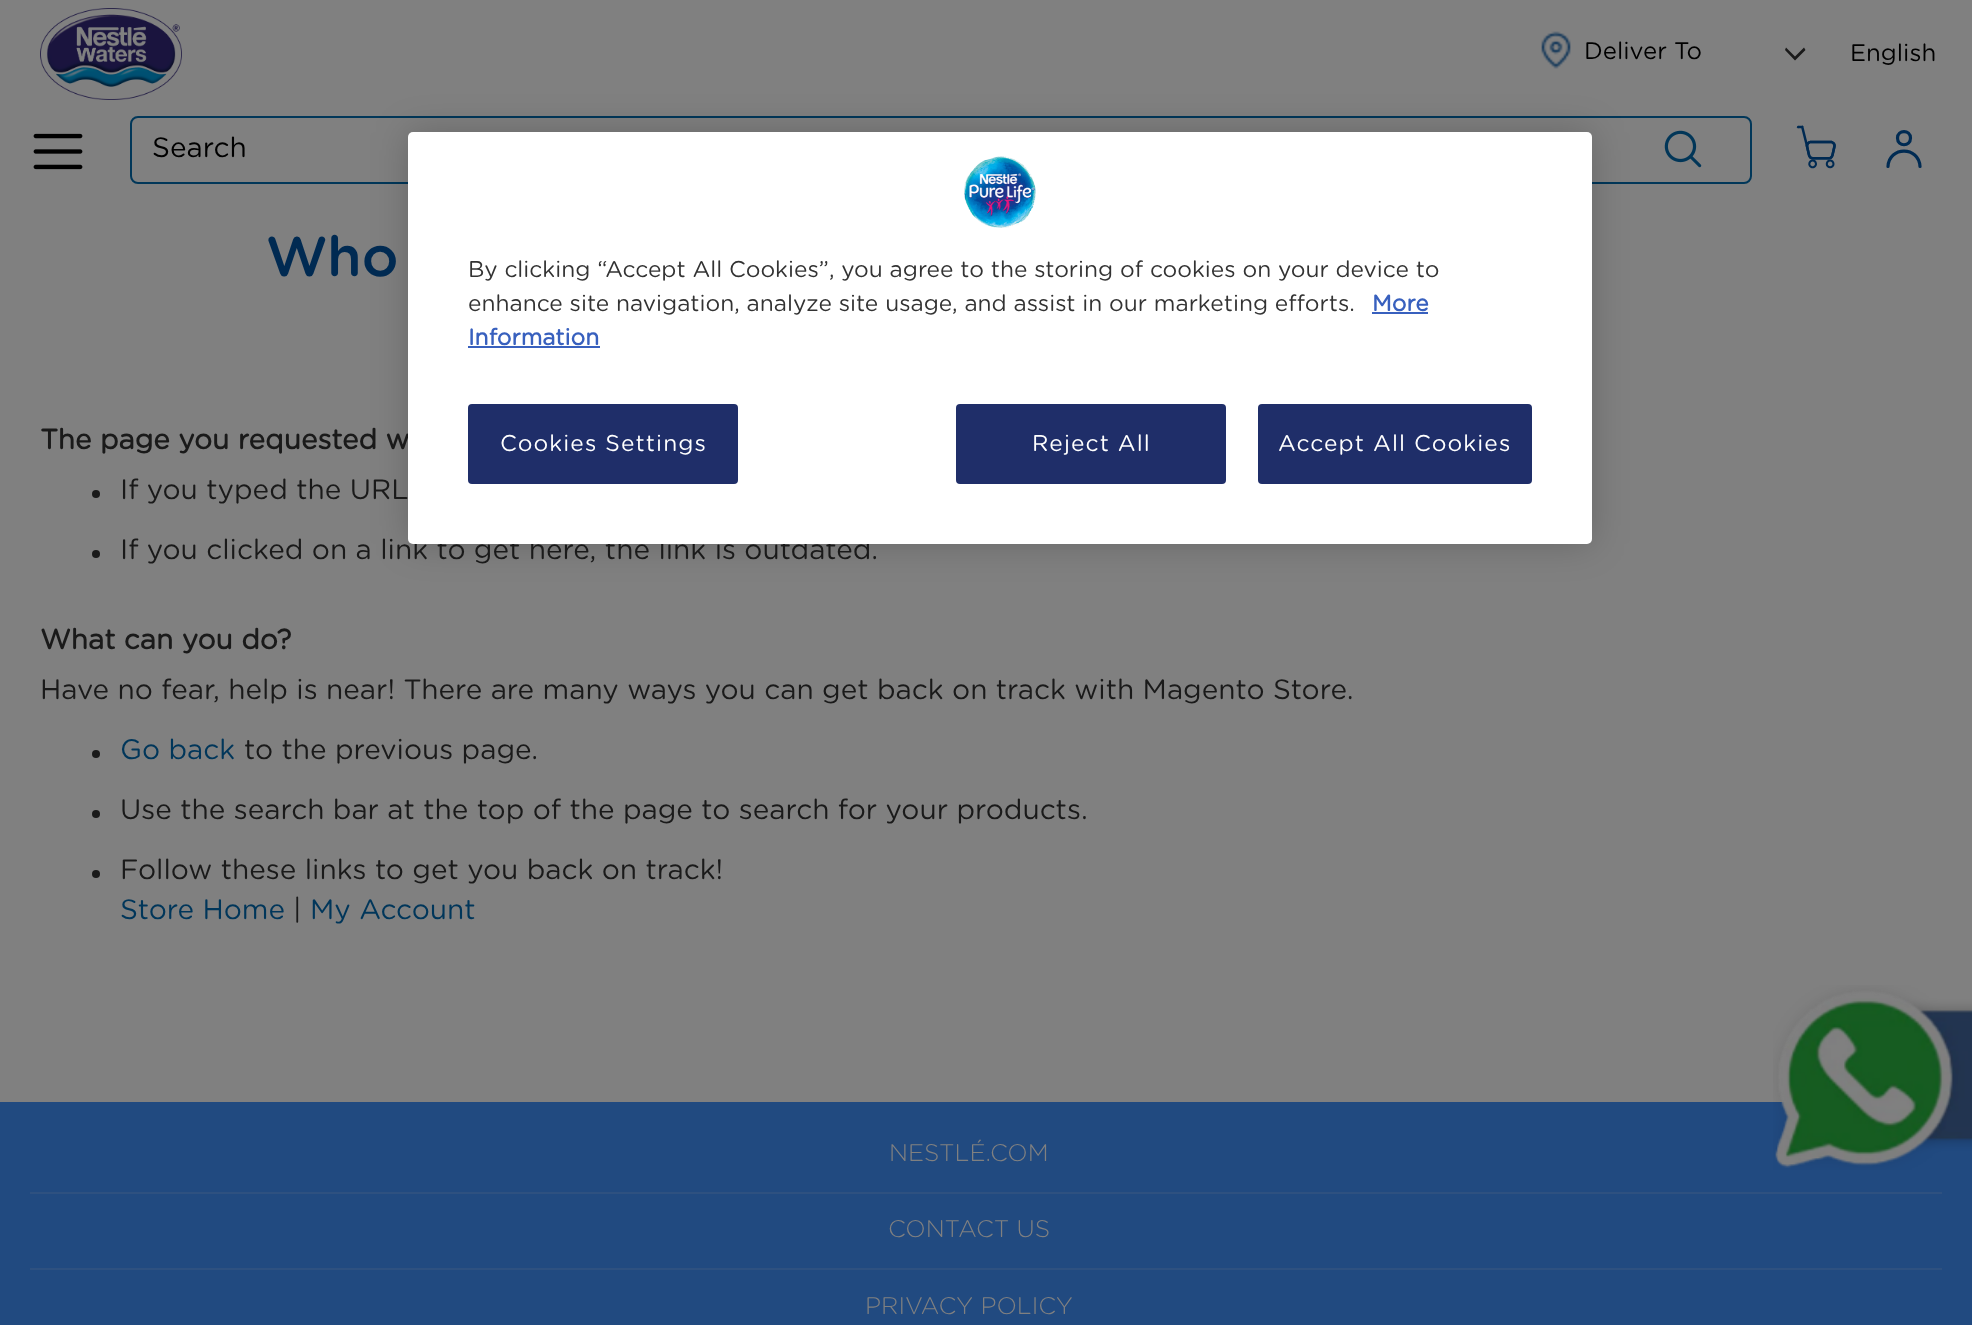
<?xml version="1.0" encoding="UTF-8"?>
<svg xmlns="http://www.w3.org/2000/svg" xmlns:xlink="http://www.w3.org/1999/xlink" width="1972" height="1325">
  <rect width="100%" height="100%" fill="#808080" />
  <image x="40" y="8" width="142" height="92" xlink:href="image1.png" />
  <image x="1541" y="31" width="30" height="38" xlink:href="image2.png" />
  <path d="M 1795.5 60 l 10 -10 l -1.5 -2.5 l -9 9 l -9 -9 l -1 2.5 l 10 10.5 z" fill="#1a1a1a" fill-rule="evenodd" />
  <rect x="131" y="117" width="1620" height="66" rx="7" fill="none" stroke="#013759" stroke-width="2" />
  <image x="1664" y="130" width="38" height="38" xlink:href="image3.png" />
  <image x="1796" y="125" width="40" height="44" xlink:href="image4.png" />
  <path d="M 1920 166.5 c -1 -20.5 -31 -20.5 -32 0 m 22.5 -28.5 c 0 9 -13 9 -13 0 c 0 -8.5 13 -8.5 13 0 z" fill="none" stroke="#002b53" stroke-width="3.2" stroke-linecap="round" stroke-linejoin="round" />
  <image x="33" y="133" width="50" height="37" xlink:href="image5.png" />
  <circle cx="96" cy="494" r="4" fill="#1a1a1a" />
  <circle cx="96" cy="554" r="4" fill="#1a1a1a" />
  <circle cx="96" cy="754" r="4" fill="#1a1a1a" />
  <circle cx="96" cy="814" r="4" fill="#1a1a1a" />
  <circle cx="96" cy="874" r="4" fill="#1a1a1a" />
  <rect y="1102" width="1972" height="223" fill="#214a80" />
  <image x="1773" y="985" width="199" height="185" xlink:href="image6.png" />
  <rect x="30" y="1192" width="1912" height="2" fill="#2e5180" />
  <rect x="30" y="1268" width="1912" height="2" fill="#2e5180" />
  <rect x="408" y="132" width="1184" height="412" rx="5" fill="#000000" fill-opacity="0.2" filter="blur(18px)" />
  <text x="1584" y="59" style="font-family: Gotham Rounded; font-size: 24px; fill: #000000">Deliver To</text>
  <text x="1850" y="61" style="font-family: Gotham Rounded; font-size: 24px; fill: #000000">English</text>
  <text x="152" y="157" style="font-family: Gotham Rounded; font-size: 28px; fill: #000000">Search</text>
  <text x="266" y="276" style="font-family: Gotham Rounded; font-size: 56px; font-weight: 500; fill: #002a52">Who</text>
  <text x="40" y="449" style="font-family: Gotham Rounded; font-size: 28px; font-weight: bold; fill: #1a1a1a">The page you requested w</text>
  <text x="120" y="499" style="font-family: Gotham Rounded; font-size: 28px; fill: #1a1a1a">If you typed the URL</text>
  <text x="120" y="559" style="font-family: Gotham Rounded; font-size: 28px; fill: #1a1a1a">If you clicked on a link to get here, the link is outdated.</text>
  <text x="40" y="649" style="font-family: Gotham Rounded; font-size: 28px; font-weight: bold; fill: #1a1a1a">What can you do?</text>
  <text x="40" y="699" style="font-family: Gotham Rounded; font-size: 28px; fill: #1a1a1a">Have no fear, help is near! There are many ways you can get back on track with Magento Store.</text>
  <text x="120" y="759" style="font-family: Gotham Rounded; font-size: 28px; fill: #00365a">Go back</text>
  <text x="244" y="759" style="font-family: Gotham Rounded; font-size: 28px; fill: #1a1a1a">to the previous page.</text>
  <text x="120" y="819" style="font-family: Gotham Rounded; font-size: 28px; fill: #1a1a1a">Use the search bar at the top of the page to search for your products.</text>
  <text x="120" y="879" style="font-family: Gotham Rounded; font-size: 28px; fill: #1a1a1a">Follow these links to get you back on track!</text>
  <text x="120" y="919" style="font-family: Gotham Rounded; font-size: 28px; fill: #00365a">Store Home</text>
  <text x="293" y="919" style="font-family: Gotham Rounded; font-size: 28px; fill: #1a1a1a">|</text>
  <text x="310" y="919" style="font-family: Gotham Rounded; font-size: 28px; fill: #00365a">My Account</text>
  <text x="889" y="1161" style="font-family: Gotham Rounded; font-size: 24px; font-weight: 300; fill: #808080">NESTLÉ.COM</text>
  <text x="888" y="1237" style="font-family: Gotham Rounded; font-size: 24px; font-weight: 300; fill: #808080">CONTACT US</text>
  <text x="865" y="1314" style="font-family: Gotham Rounded; font-size: 24px; font-weight: 300; fill: #808080">PRIVACY POLICY</text>
  <rect x="408" y="132" width="1184" height="412" rx="5" fill="#ffffff" />
  <image x="964" y="156" width="72" height="72" xlink:href="image7.png" />
  <text x="468" y="277" style="font-family: Gotham Rounded; font-size: 22.75px; fill: #333333">By clicking “Accept All Cookies”, you agree to the storing of cookies on your device to</text>
  <text x="468" y="311" style="font-family: Gotham Rounded; font-size: 22.75px; fill: #333333">enhance site navigation, analyze site usage, and assist in our marketing efforts.</text>
  <text x="1372" y="311" style="font-family: Gotham Rounded; font-size: 22.75px; font-weight: bold; fill: #3860be">More</text>
  <rect x="1372" y="312" width="56" height="2" fill="#3860be" />
  <text x="468" y="345" style="font-family: Gotham Rounded; font-size: 22.75px; font-weight: bold; fill: #3860be">Information</text>
  <rect x="468" y="346" width="132" height="2" fill="#3860be" />
  <rect x="468" y="404" width="270" height="80" rx="4" fill="#1f2e69" />
  <text x="500" y="451" style="font-family: Gotham Rounded; font-size: 22.75px; letter-spacing: 1.1px; fill: #ffffff">Cookies Settings</text>
  <rect x="956" y="404" width="270" height="80" rx="4" fill="#1f2e69" />
  <text x="1032" y="451" style="font-family: Gotham Rounded; font-size: 22.75px; letter-spacing: 1.1px; fill: #ffffff">Reject All</text>
  <rect x="1258" y="404" width="274" height="80" rx="4" fill="#1f2e69" />
  <text x="1278" y="451" style="font-family: Gotham Rounded; font-size: 22.75px; letter-spacing: 1.1px; fill: #ffffff">Accept All Cookies</text>
</svg>
